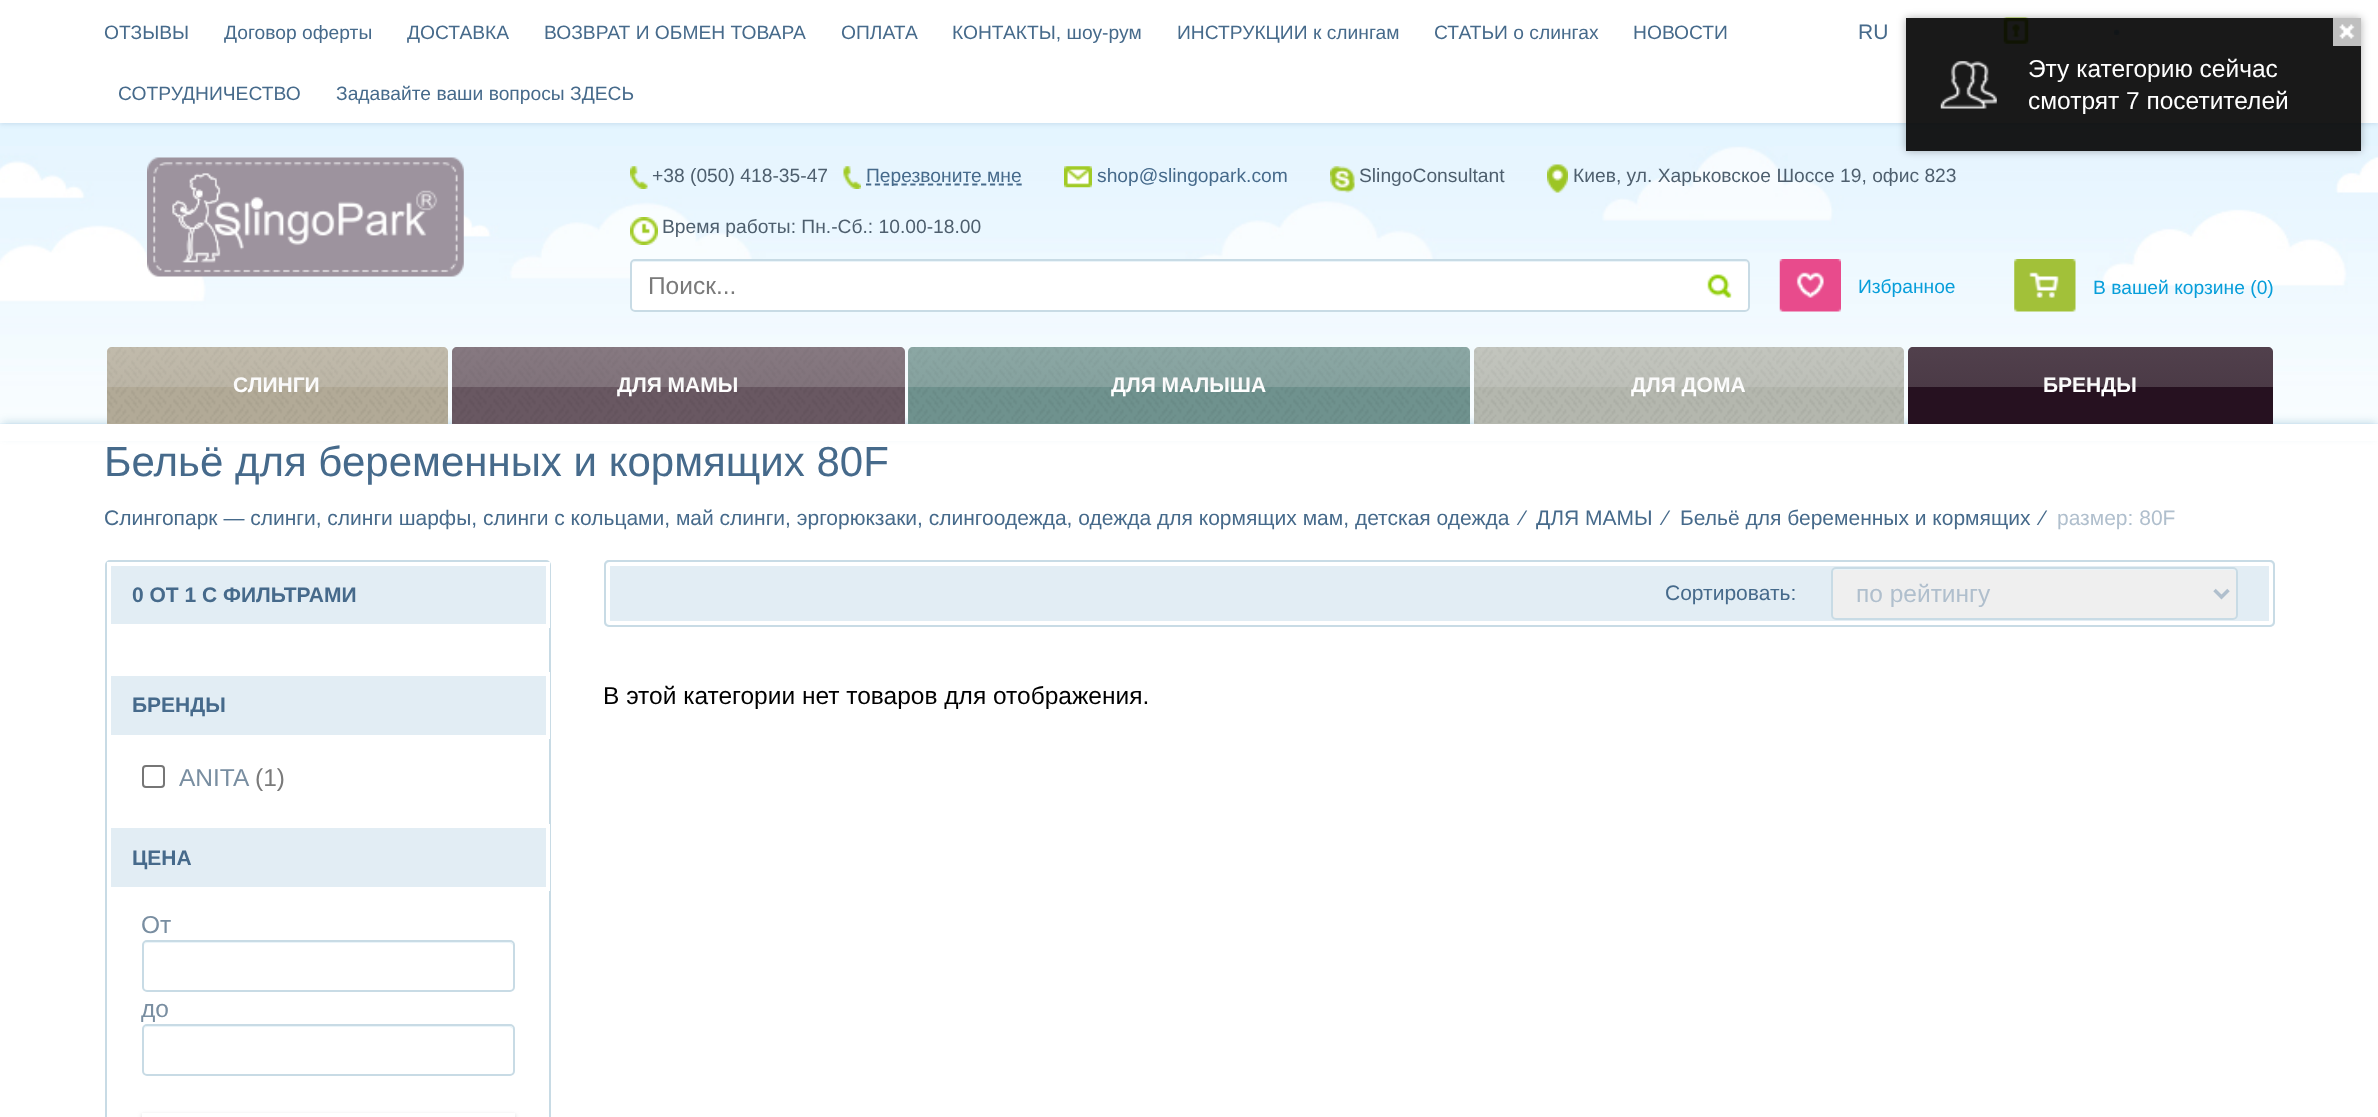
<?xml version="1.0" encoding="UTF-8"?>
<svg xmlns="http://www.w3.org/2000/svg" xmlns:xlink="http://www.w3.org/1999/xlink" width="2378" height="1117">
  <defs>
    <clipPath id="clip1"><path d="M 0 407 h 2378 v 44 h -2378 z m 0 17 h 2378 v 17 h -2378 z" clip-rule="evenodd" /></clipPath>
    <clipPath id="clip2"><path d="M 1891 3 h 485 v 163 h -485 z m 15 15 h 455 v 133 h -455 z" clip-rule="evenodd" /></clipPath>
    <clipPath id="clip3"><rect x="105" y="347" width="345" height="77" /></clipPath>
    <linearGradient id="g1" gradientUnits="userSpaceOnUse" x1="277" y1="345" x2="277" y2="387"><stop offset="0" stop-color="#ffffff" stop-opacity="0.2" /><stop offset="1" stop-color="#e0e0e0" stop-opacity="0.2" /></linearGradient>
    <clipPath id="clip4"><rect x="450" y="347" width="457" height="77" /></clipPath>
    <linearGradient id="g2" gradientUnits="userSpaceOnUse" x1="678" y1="345" x2="678" y2="387"><stop offset="0" stop-color="#ffffff" stop-opacity="0.2" /><stop offset="1" stop-color="#e0e0e0" stop-opacity="0.2" /></linearGradient>
    <clipPath id="clip5"><rect x="907" y="347" width="565" height="77" /></clipPath>
    <linearGradient id="g3" gradientUnits="userSpaceOnUse" x1="1189" y1="345" x2="1189" y2="387"><stop offset="0" stop-color="#ffffff" stop-opacity="0.2" /><stop offset="1" stop-color="#e0e0e0" stop-opacity="0.2" /></linearGradient>
    <clipPath id="clip6"><rect x="1472" y="347" width="434" height="77" /></clipPath>
    <linearGradient id="g4" gradientUnits="userSpaceOnUse" x1="1689" y1="345" x2="1689" y2="387"><stop offset="0" stop-color="#ffffff" stop-opacity="0.2" /><stop offset="1" stop-color="#e0e0e0" stop-opacity="0.2" /></linearGradient>
    <clipPath id="clip7"><rect x="1906" y="347" width="369" height="77" /></clipPath>
    <linearGradient id="g5" gradientUnits="userSpaceOnUse" x1="2090" y1="345" x2="2090" y2="387"><stop offset="0" stop-color="#ffffff" stop-opacity="0.2" /><stop offset="1" stop-color="#e0e0e0" stop-opacity="0.2" /></linearGradient>
  </defs>
  <rect width="100%" height="100%" fill="#ffffff" />
  <rect y="123" width="2378" height="301" fill="#e4f5ff" />
  <rect y="2" width="2378" height="122" fill="#b8d2e5" fill-opacity="0.7" filter="blur(2.5px)" />
  <rect width="2378" height="123" fill="#ffffff" />
  <image x="2003" y="17" width="26" height="27" xlink:href="image1.png" />
  <image x="2114" y="29" width="6" height="6" xlink:href="image2.png" />
  <image x="0" y="146" width="2378" height="278" xlink:href="image3.png" />
  <image x="147" y="157" width="317" height="120" xlink:href="image4.png" />
  <image x="630" y="166" width="18" height="23" xlink:href="image5.png" />
  <image x="843" y="166" width="18" height="23" xlink:href="image6.png" />
  <path d="M 866 184.5 h 156" fill="none" stroke="#466a8b" stroke-width="1.8" stroke-dasharray="5.25 3.6" />
  <image x="1064" y="166" width="28" height="22" xlink:href="image7.png" />
  <image x="1330" y="166" width="25" height="27" xlink:href="image8.png" />
  <image x="1547" y="164" width="21" height="29" xlink:href="image9.png" />
  <image x="630" y="217" width="28" height="28" xlink:href="image10.png" />
  <rect x="630" y="259" width="1120" height="53" rx="5" fill="#ffffff" />
  <path d="M 635 262 h 1110 c 2 0 3 2 3 4 c 0 -3 -1 -5 -4 -5 h -1108 c -3 0 -4 2 -4 5 c 0 -2 1 -4 3 -4 z" fill="#eaf4f9" />
  <rect x="631" y="260" width="1118" height="51" rx="4" fill="none" stroke="#c8dbe5" stroke-width="2" />
  <image x="1707" y="274" width="25" height="24" xlink:href="image11.png" />
  <image x="1779" y="259" width="62" height="53" xlink:href="image12.png" />
  <image x="2014" y="259" width="62" height="53" xlink:href="image13.png" />
  <g clip-path="url(#clip1)">
    <rect x="2" y="422" width="2375" height="14" fill="#166891" fill-opacity="0.2" filter="blur(4.5px)" />
  </g>
  <path d="M 112 347 h 331 c 3 0 5 2 5 5 v 72 h -341 v -72 c 0 -3 2 -5 5 -5 z" fill="#b2aa97" />
  <image x="107" y="347" width="341" height="76" xlink:href="image14.png" />
  <path d="M 457 347 h 443 c 3 0 5 2 5 5 v 72 h -453 v -72 c 0 -3 2 -5 5 -5 z" fill="#695862" />
  <image x="452" y="347" width="452" height="76" xlink:href="image15.png" />
  <path d="M 913 347 h 552 c 3 0 5 2 5 5 v 72 h -562 v -72 c 0 -3 2 -5 5 -5 z" fill="#6f928e" />
  <image x="909" y="347" width="561" height="76" xlink:href="image16.png" />
  <path d="M 1479 347 h 420 c 3 0 5 2 5 5 v 72 h -430 v -72 c 0 -3 2 -5 5 -5 z" fill="#b4b7ae" />
  <image x="1474" y="347" width="430" height="76" xlink:href="image17.png" />
  <path d="M 1913 347 h 355 c 3 0 5 2 5 5 v 72 h -365 v -72 c 0 -3 2 -5 5 -5 z" fill="#261120" />
  <rect x="1908" y="349" width="1" height="1" fill="#879cab" />
  <g clip-path="url(#clip2)">
    <rect x="1906" y="18" width="455" height="133" fill="#000000" fill-opacity="0.3" filter="blur(4.5px)" />
  </g>
  <rect x="1906" y="18" width="455" height="133" fill="#000000" fill-opacity="0.9" />
  <rect x="2333" y="18" width="28" height="28" fill="#bfbfbf" />
  <image x="2339" y="24" width="16" height="15" xlink:href="image18.png" />
  <image x="1940" y="61" width="57" height="48" xlink:href="image19.png" />
  <rect x="106" y="561" width="444" height="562" rx="4" fill="none" stroke="#c8dbe5" stroke-width="2" />
  <rect x="109" y="564" width="439" height="62" fill="#e2edf4" stroke="#ffffff" stroke-width="4" />
  <rect x="109" y="674" width="439" height="63" fill="#e2edf4" stroke="#ffffff" stroke-width="4" />
  <rect x="143" y="766" width="21" height="21" rx="3" fill="none" stroke="#767676" stroke-width="2" />
  <rect x="109" y="826" width="439" height="63" fill="#e2edf4" stroke="#ffffff" stroke-width="4" />
  <path d="M 147 943 h 362 c 2 0 4 2 4 4 c 0 -3 -1 -5 -4 -5 h -361 c -3 0 -4 2 -4 5 c 0 -2 1 -4 3 -4 z" fill="#eaf4f9" />
  <rect x="143" y="941" width="371" height="50" rx="4" fill="none" stroke="#c8dbe5" stroke-width="2" />
  <path d="M 147 1027 h 362 c 2 0 4 2 4 4 c 0 -3 -1 -5 -4 -5 h -361 c -3 0 -4 2 -4 5 c 0 -2 1 -4 3 -4 z" fill="#eaf4f9" />
  <rect x="143" y="1025" width="371" height="50" rx="4" fill="none" stroke="#c8dbe5" stroke-width="2" />
  <rect x="142" y="1115" width="373" height="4" fill="#c5c5c5" filter="blur(2px)" />
  <rect x="142" y="1113" width="373" height="4" fill="#ffffff" />
  <rect x="604" y="560" width="1671" height="67" rx="5" fill="#e2edf4" />
  <rect x="608" y="564" width="1663" height="59" rx="2" fill="none" stroke="#ffffff" stroke-width="4" />
  <rect x="605" y="561" width="1669" height="65" rx="4" fill="none" stroke="#c8dbe5" stroke-width="2" />
  <rect x="1831" y="567" width="407" height="53" rx="5" fill="#efefef" />
  <path d="M 1836 570 h 397 c 2 0 3 2 3 4 v 43 c 1 -1 1 -2 1 -3 v -41 c 0 -2 -2 -4 -4 -4 h -397 c -2 0 -4 2 -4 4 v 1 c 0 -2 2 -4 4 -4 z" fill="#eaf4f9" />
  <rect x="1832" y="568" width="405" height="51" rx="4" fill="none" stroke="#c8dbe5" stroke-width="2" />
  <path d="M 2214.5 590 l 7 7 l 7 -7" fill="none" stroke="#b0bfcd" stroke-width="3.5" />
  <text x="104" y="39" style="font-family: Liberation Sans; font-size: 19.25px; fill: #466a8b">ОТЗЫВЫ</text>
  <text x="224" y="39" style="font-family: Liberation Sans; font-size: 19.25px; fill: #466a8b">Договор оферты</text>
  <text x="407" y="39" style="font-family: Liberation Sans; font-size: 19.25px; fill: #466a8b">ДОСТАВКА</text>
  <text x="544" y="39" style="font-family: Liberation Sans; font-size: 19.25px; fill: #466a8b">ВОЗВРАТ И ОБМЕН ТОВАРА</text>
  <text x="841" y="39" style="font-family: Liberation Sans; font-size: 19.25px; fill: #466a8b">ОПЛАТА</text>
  <text x="952" y="39" style="font-family: Liberation Sans; font-size: 19.25px; fill: #466a8b">КОНТАКТЫ, шоу-рум</text>
  <text x="1177" y="39" style="font-family: Liberation Sans; font-size: 19.25px; fill: #466a8b">ИНСТРУКЦИИ к слингам</text>
  <text x="1434" y="39" style="font-family: Liberation Sans; font-size: 19.25px; fill: #466a8b">СТАТЬИ о слингах</text>
  <text x="1633" y="39" style="font-family: Liberation Sans; font-size: 19.25px; fill: #466a8b">НОВОСТИ</text>
  <text x="118" y="100" style="font-family: Liberation Sans; font-size: 19.25px; fill: #466a8b">СОТРУДНИЧЕСТВО</text>
  <text x="336" y="100" style="font-family: Liberation Sans; font-size: 19.25px; fill: #466a8b">Задавайте ваши вопросы ЗДЕСЬ</text>
  <text x="1858" y="39" style="font-family: Liberation Sans; font-size: 21px; fill: #466a8b">RU</text>
  <text x="652" y="182" style="font-family: Liberation Sans; font-size: 19.25px; fill: #4e5f6e">+38 (050) 418-35-47</text>
  <text x="866" y="182" style="font-family: Liberation Sans; font-size: 19.25px; fill: #466a8b">Перезвоните мне</text>
  <text x="1097" y="182" style="font-family: Liberation Sans; font-size: 19.25px; fill: #466a8b">shop@slingopark.com</text>
  <text x="1359" y="182" style="font-family: Liberation Sans; font-size: 19.25px; fill: #4e5f6e">SlingoConsultant</text>
  <text x="1573" y="182" style="font-family: Liberation Sans; font-size: 19.25px; fill: #4e5f6e">Киев, ул. Харьковское Шоссе 19, офис 823</text>
  <text x="662" y="233" style="font-family: Liberation Sans; font-size: 19.25px; fill: #4e5f6e">Время работы: Пн.-Сб.: 10.00-18.00</text>
  <text x="648" y="294" style="font-family: Liberation Sans; font-size: 24.5px; fill: #7a7a7a">Поиск...</text>
  <text x="1858" y="293" style="font-family: Liberation Sans; font-size: 19.25px; fill: #079eda">Избранное</text>
  <text x="2093" y="294" style="font-family: Liberation Sans; font-size: 19.25px; fill: #079eda">В вашей корзине (0)</text>
  <text x="233" y="392" style="font-family: Liberation Sans; font-size: 21px; font-weight: bold; fill: #ffffff">СЛИНГИ</text>
  <g clip-path="url(#clip3)">
    <path d="M 112 345 h 331 c 3 0 5 2 5 5 v 37 h -341 v -37 c 0 -3 2 -5 5 -5 z" fill="url(#g1)" />
  </g>
  <text x="617" y="392" style="font-family: Liberation Sans; font-size: 21px; font-weight: bold; fill: #ffffff">ДЛЯ МАМЫ</text>
  <g clip-path="url(#clip4)">
    <path d="M 457 345 h 443 c 3 0 5 2 5 5 v 37 h -453 v -37 c 0 -3 2 -5 5 -5 z" fill="url(#g2)" />
  </g>
  <text x="1111" y="392" style="font-family: Liberation Sans; font-size: 21px; font-weight: bold; fill: #ffffff">ДЛЯ МАЛЫША</text>
  <g clip-path="url(#clip5)">
    <path d="M 913 345 h 552 c 3 0 5 2 5 5 v 37 h -562 v -37 c 0 -3 2 -5 5 -5 z" fill="url(#g3)" />
  </g>
  <text x="1631" y="392" style="font-family: Liberation Sans; font-size: 21px; font-weight: bold; fill: #ffffff">ДЛЯ ДОМА</text>
  <g clip-path="url(#clip6)">
    <path d="M 1479 345 h 420 c 3 0 5 2 5 5 v 37 h -430 v -37 c 0 -3 2 -5 5 -5 z" fill="url(#g4)" />
  </g>
  <text x="2043" y="392" style="font-family: Liberation Sans; font-size: 21px; font-weight: bold; fill: #ffffff">БРЕНДЫ</text>
  <g clip-path="url(#clip7)">
    <path d="M 1913 345 h 355 c 3 0 5 2 5 5 v 37 h -365 v -37 c 0 -3 2 -5 5 -5 z" fill="url(#g5)" />
  </g>
  <text x="2028" y="77" style="font-family: Liberation Sans; font-size: 24.5px; fill: #ffffff">Эту категорию сейчас</text>
  <text x="2028" y="109" style="font-family: Liberation Sans; font-size: 24.5px; fill: #ffffff">смотрят 7 посетителей</text>
  <text x="104" y="476" style="font-family: Liberation Sans; font-size: 42px; fill: #466a8b">Бельё для беременных и кормящих 80F</text>
  <text x="104" y="525" style="font-family: Liberation Sans; font-size: 21px; fill: #466a8b">Слингопарк — слинги, слинги шарфы, слинги с кольцами, май слинги, эргорюкзаки, слингоодежда, одежда для кормящих мам, детская одежда</text>
  <text x="1521" y="525" style="font-family: Liberation Sans; font-size: 21px; fill: #466a8b">⁄</text>
  <text x="1536" y="525" style="font-family: Liberation Sans; font-size: 21px; fill: #466a8b">ДЛЯ МАМЫ</text>
  <text x="1664" y="525" style="font-family: Liberation Sans; font-size: 21px; fill: #466a8b">⁄</text>
  <text x="1680" y="525" style="font-family: Liberation Sans; font-size: 21px; fill: #466a8b">Бельё для беременных и кормящих</text>
  <text x="2041" y="525" style="font-family: Liberation Sans; font-size: 21px; fill: #466a8b">⁄</text>
  <text x="2057" y="525" style="font-family: Liberation Sans; font-size: 21px; fill: #b0bfcd">размер: 80F</text>
  <text x="132" y="602" style="font-family: Liberation Sans; font-size: 21px; font-weight: bold; fill: #466a8b">0 ОТ 1 С ФИЛЬТРАМИ</text>
  <text x="132" y="712" style="font-family: Liberation Sans; font-size: 21px; font-weight: bold; fill: #466a8b">БРЕНДЫ</text>
  <text x="179" y="786" style="font-family: Liberation Sans; font-size: 24.5px; fill: #798ea1">ANITA</text>
  <text x="255" y="786" style="font-family: Liberation Sans; font-size: 24.5px; fill: #7a7a7a">(1)</text>
  <text x="132" y="865" style="font-family: Liberation Sans; font-size: 21px; font-weight: bold; fill: #466a8b">ЦЕНА</text>
  <text x="141" y="933" style="font-family: Liberation Sans; font-size: 24.5px; fill: #798ea1">От</text>
  <text x="141" y="1017" style="font-family: Liberation Sans; font-size: 24.5px; fill: #798ea1">до</text>
  <text x="1665" y="600" style="font-family: Liberation Sans; font-size: 21px; fill: #466a8b">Сортировать:</text>
  <text x="1856" y="602" style="font-family: Liberation Sans; font-size: 24.5px; fill: #b0bfcd">по рейтингу</text>
  <text x="603" y="704" style="font-family: Liberation Sans; font-size: 24.5px; fill: #000000">В этой категории нет товаров для отображения.</text>
</svg>
